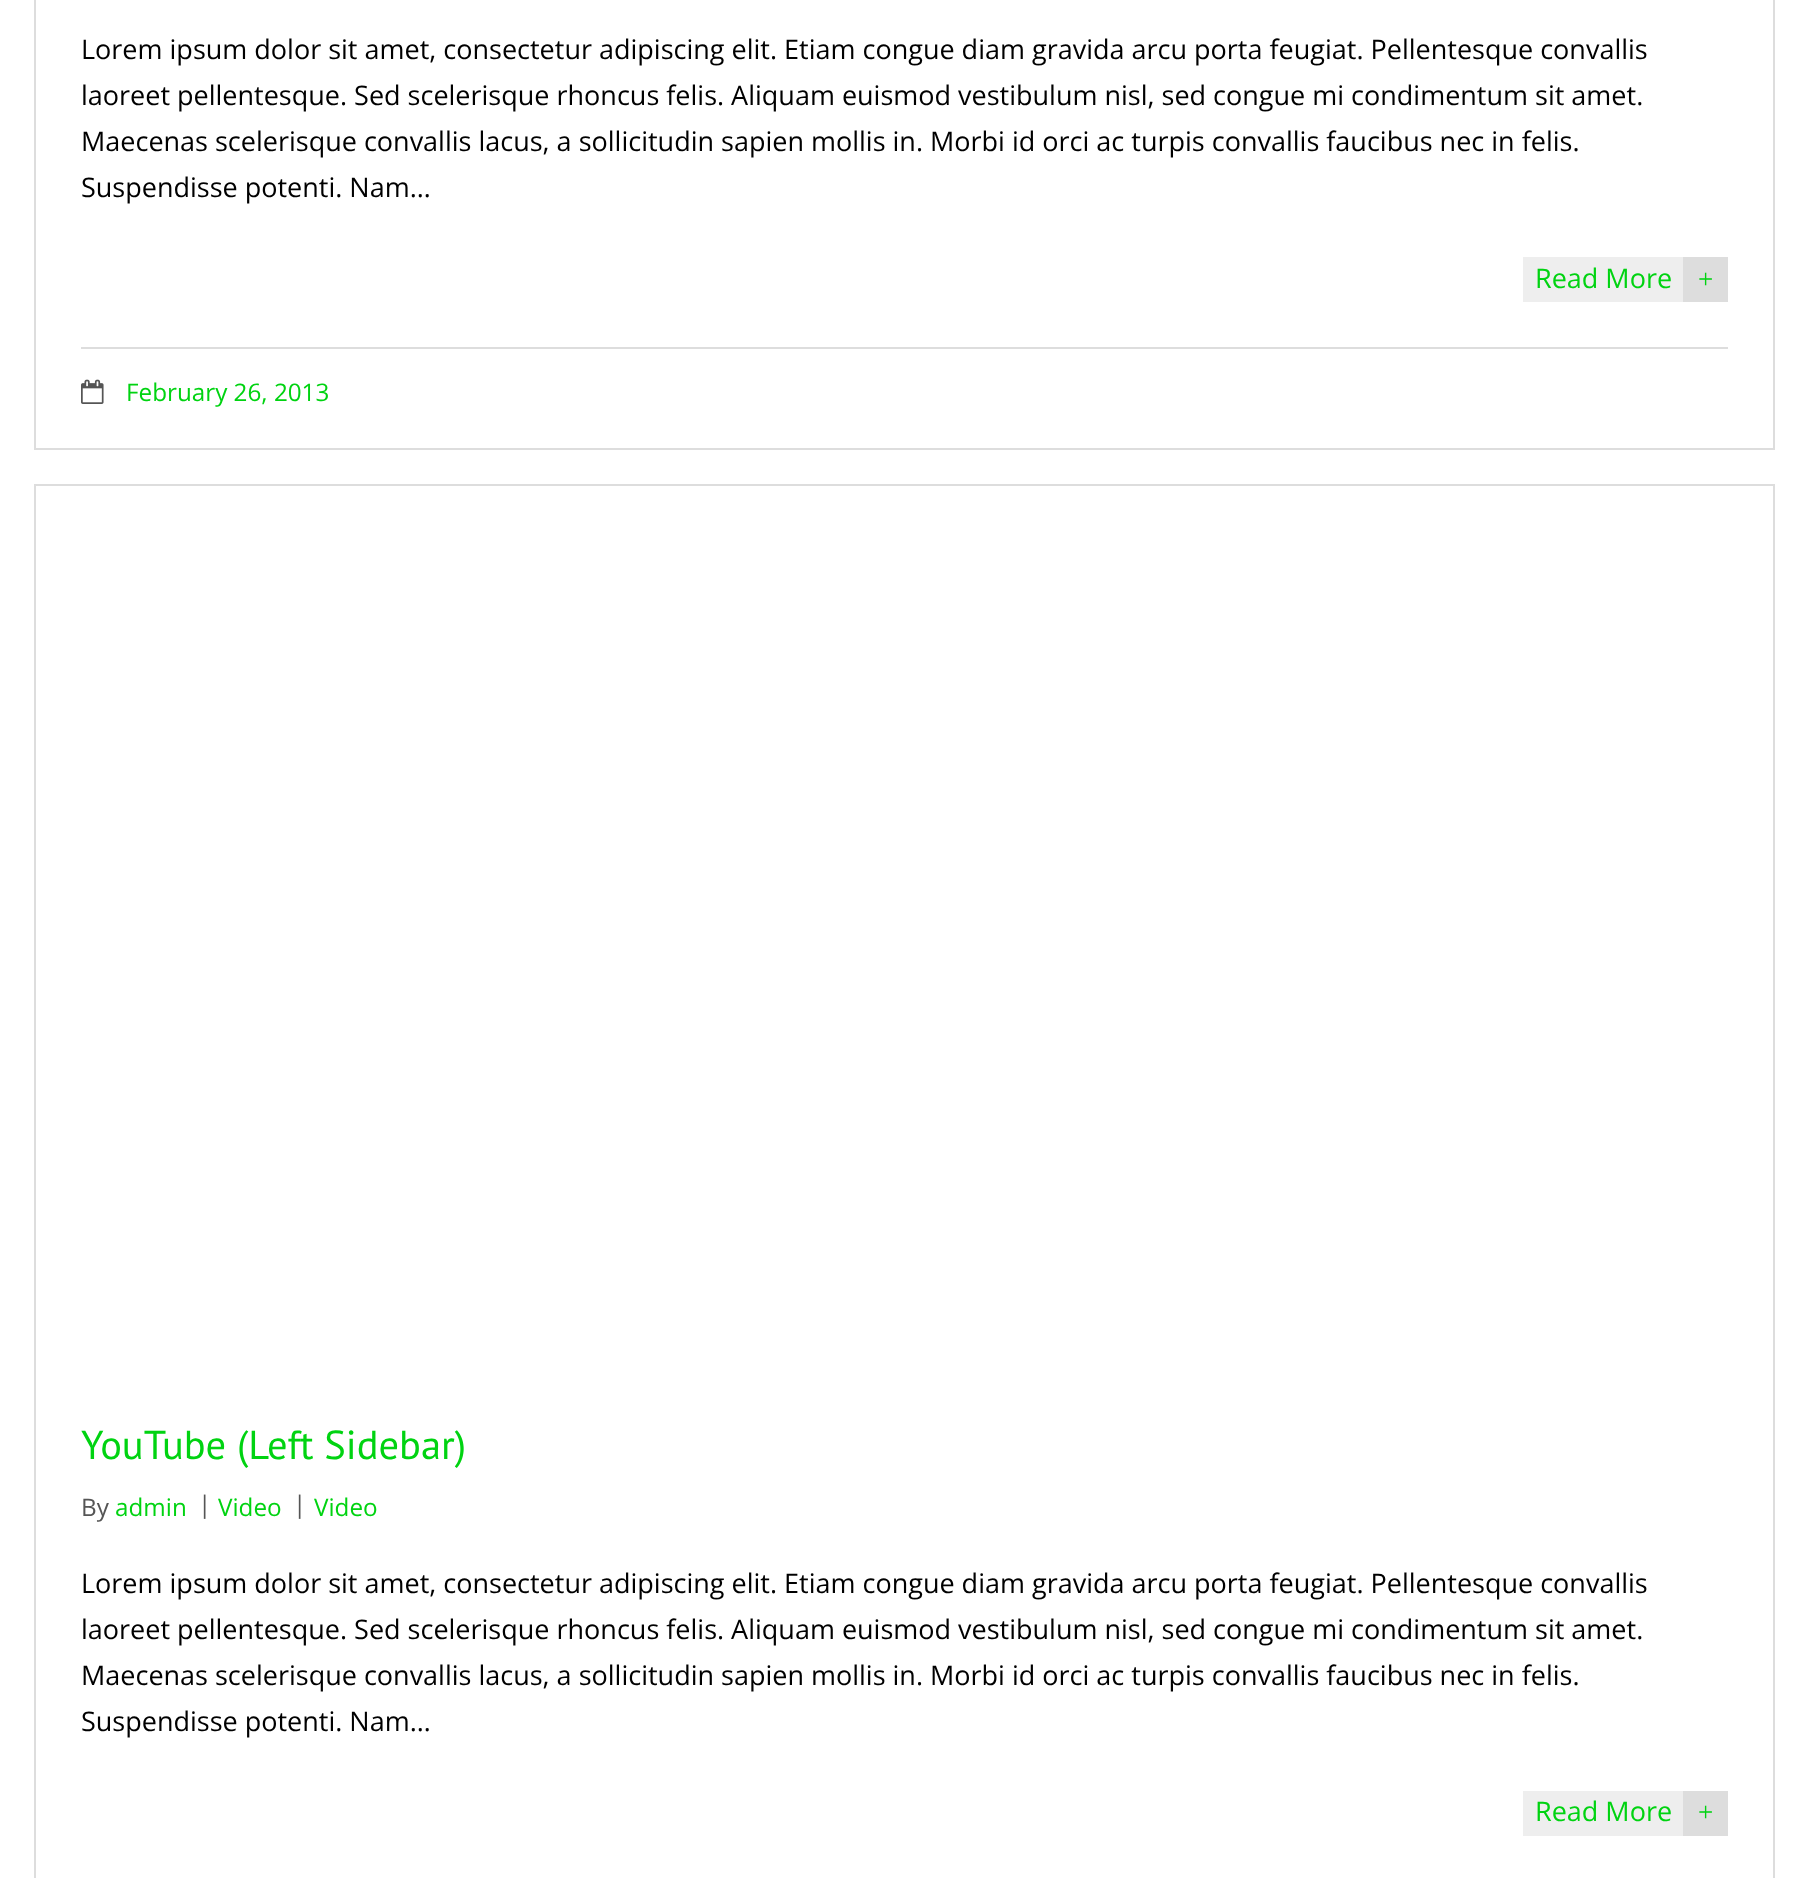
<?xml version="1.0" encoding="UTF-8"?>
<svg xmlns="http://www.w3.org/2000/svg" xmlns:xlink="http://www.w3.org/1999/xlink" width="1808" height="1878">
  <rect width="100%" height="100%" fill="#ffffff" />
  <rect x="35" y="-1" width="1739" height="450" fill="none" stroke="#dddddd" stroke-width="2" />
  <rect x="1523" y="257" width="160" height="45" fill="#eeeeee" />
  <rect x="1683" y="257" width="45" height="45" fill="#dddddd" />
  <rect x="81" y="347" width="1647" height="2" fill="#dddddd" />
  <image x="81" y="379" width="23" height="25" xlink:href="image1.png" />
  <rect x="35" y="485" width="1739" height="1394" fill="none" stroke="#dddddd" stroke-width="2" />
  <rect x="1523" y="1791" width="160" height="45" fill="#eeeeee" />
  <rect x="1683" y="1791" width="45" height="45" fill="#dddddd" />
  <text x="81" y="59" style="font-family: Open Sans; font-size: 27px; fill: #000000">Lorem ipsum dolor sit amet, consectetur adipiscing elit. Etiam congue diam gravida arcu porta feugiat. Pellentesque convallis</text>
  <text x="81" y="105" style="font-family: Open Sans; font-size: 27px; fill: #000000">laoreet pellentesque. Sed scelerisque rhoncus felis. Aliquam euismod vestibulum nisl, sed congue mi condimentum sit amet.</text>
  <text x="81" y="151" style="font-family: Open Sans; font-size: 27px; fill: #000000">Maecenas scelerisque convallis lacus, a sollicitudin sapien mollis in. Morbi id orci ac turpis convallis faucibus nec in felis.</text>
  <text x="81" y="197" style="font-family: Open Sans; font-size: 27px; fill: #000000">Suspendisse potenti. Nam…</text>
  <text x="1535" y="288" style="font-family: Open Sans; font-size: 27px; fill: #00d311">Read More</text>
  <text x="1698" y="288" style="font-family: Liberation Serif; font-size: 27px; fill: #00d311">+</text>
  <text x="126" y="401" style="font-family: Open Sans; font-size: 24.25px; fill: #00d311">February 26, 2013</text>
  <text x="81" y="1459" style="font-family: PT Sans; font-size: 40.5px; fill: #00d311">YouTube (Left Sidebar)</text>
  <text x="81" y="1516" style="font-family: Open Sans; font-size: 24.25px; fill: #555555">By</text>
  <text x="115" y="1516" style="font-family: Open Sans; font-size: 24.25px; fill: #00d311">admin</text>
  <text x="198" y="1513" style="font-family: Open Sans; font-size: 24.25px; fill: #555555">|</text>
  <text x="218" y="1516" style="font-family: Open Sans; font-size: 24.25px; fill: #00d311">Video</text>
  <text x="293" y="1513" style="font-family: Open Sans; font-size: 24.25px; fill: #555555">|</text>
  <text x="314" y="1516" style="font-family: Open Sans; font-size: 24.25px; fill: #00d311">Video</text>
  <text x="81" y="1593" style="font-family: Open Sans; font-size: 27px; fill: #000000">Lorem ipsum dolor sit amet, consectetur adipiscing elit. Etiam congue diam gravida arcu porta feugiat. Pellentesque convallis</text>
  <text x="81" y="1639" style="font-family: Open Sans; font-size: 27px; fill: #000000">laoreet pellentesque. Sed scelerisque rhoncus felis. Aliquam euismod vestibulum nisl, sed congue mi condimentum sit amet.</text>
  <text x="81" y="1685" style="font-family: Open Sans; font-size: 27px; fill: #000000">Maecenas scelerisque convallis lacus, a sollicitudin sapien mollis in. Morbi id orci ac turpis convallis faucibus nec in felis.</text>
  <text x="81" y="1731" style="font-family: Open Sans; font-size: 27px; fill: #000000">Suspendisse potenti. Nam…</text>
  <text x="1535" y="1821" style="font-family: Open Sans; font-size: 27px; fill: #00d311">Read More</text>
  <text x="1698" y="1821" style="font-family: Liberation Serif; font-size: 27px; fill: #00d311">+</text>
</svg>
